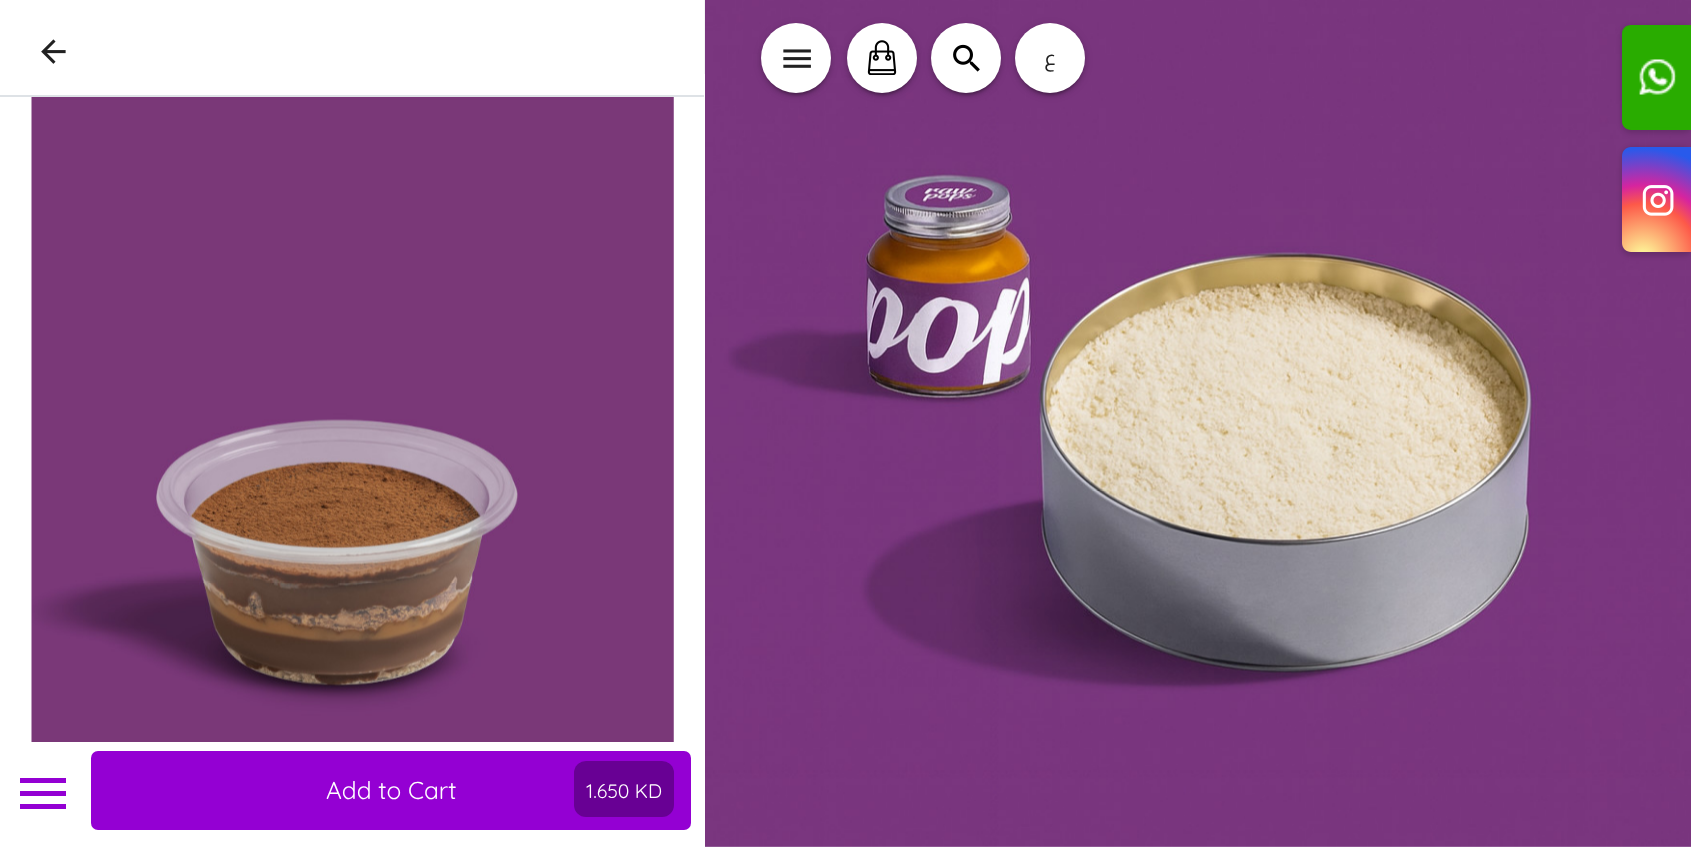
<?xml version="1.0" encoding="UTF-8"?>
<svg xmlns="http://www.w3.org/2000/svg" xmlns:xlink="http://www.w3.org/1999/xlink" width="1691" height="847">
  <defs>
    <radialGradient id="g1" gradientUnits="userSpaceOnUse" cx="1643" cy="259" r="123"><stop offset="0" stop-color="#fdf497" /><stop offset="0.05" stop-color="#fdf497" /><stop offset="0.45" stop-color="#fd5949" /><stop offset="0.6" stop-color="#d6249f" /><stop offset="0.9" stop-color="#285aeb" /></radialGradient>
  </defs>
  <rect width="100%" height="100%" fill="#f4f5f5" />
  <image x="705" y="0" width="986" height="847" xlink:href="image1.png" />
  <rect x="761" y="25" width="70" height="70" rx="35" fill="#000000" fill-opacity="0.12" filter="blur(4.5px)" />
  <rect x="761" y="26" width="70" height="70" rx="35" fill="#000000" fill-opacity="0.14" filter="blur(2px)" />
  <rect x="765" y="32" width="63" height="63" rx="31.5" fill="#000000" fill-opacity="0.2" filter="blur(1px)" />
  <circle cx="796" cy="58" r="35" fill="#ffffff" />
  <image x="783" y="49" width="28" height="19" xlink:href="image2.png" />
  <rect x="1015" y="25" width="70" height="70" rx="35" fill="#000000" fill-opacity="0.12" filter="blur(4.5px)" />
  <rect x="1015" y="26" width="70" height="70" rx="35" fill="#000000" fill-opacity="0.14" filter="blur(2px)" />
  <rect x="1019" y="32" width="63" height="63" rx="31.5" fill="#000000" fill-opacity="0.2" filter="blur(1px)" />
  <circle cx="1050" cy="58" r="35" fill="#ffffff" />
  <rect x="931" y="25" width="70" height="70" rx="35" fill="#000000" fill-opacity="0.12" filter="blur(4.5px)" />
  <rect x="931" y="26" width="70" height="70" rx="35" fill="#000000" fill-opacity="0.14" filter="blur(2px)" />
  <rect x="935" y="32" width="63" height="63" rx="31.5" fill="#000000" fill-opacity="0.2" filter="blur(1px)" />
  <circle cx="966" cy="58" r="35" fill="#ffffff" />
  <rect x="847" y="25" width="70" height="70" rx="35" fill="#000000" fill-opacity="0.12" filter="blur(4.5px)" />
  <rect x="847" y="26" width="70" height="70" rx="35" fill="#000000" fill-opacity="0.14" filter="blur(2px)" />
  <rect x="851" y="32" width="63" height="63" rx="31.5" fill="#000000" fill-opacity="0.2" filter="blur(1px)" />
  <circle cx="882" cy="58" r="35" fill="#ffffff" />
  <image x="867" y="40" width="30" height="35" xlink:href="image3.png" />
  <image x="953" y="44" width="27" height="28" xlink:href="image4.png" />
  <rect width="704" height="74" fill="#ffffff" />
  <rect y="74" width="705" height="773" fill="#ffffff" />
  <rect y="95" width="704" height="2" fill="#dee2e6" />
  <image x="41" y="39" width="25" height="25" xlink:href="image5.png" />
  <image x="31" y="97" width="643" height="645" xlink:href="image6.png" />
  <path d="M 20 809 h 46 v -5 h -46 z m 0 -13 h 46 v -5 h -46 z m 0 -18 v 5 h 46 v -5 z" fill="#9400d3" />
  <rect x="91" y="751" width="600" height="79" rx="7" fill="#9400d3" />
  <rect x="574" y="761" width="100" height="56" rx="12" fill="#680094" />
  <rect x="1621" y="25" width="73" height="108" rx="11" fill="#000000" fill-opacity="0.15" filter="blur(2.5px)" />
  <path d="M 1631 25 h 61 v 105 h -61 c -5 0 -9 -4 -9 -9 v -87 c 0 -5 4 -9 9 -9 z" fill="#29ac00" />
  <image x="1622" y="25" width="55" height="104" xlink:href="image7.png" />
  <rect x="1621" y="147" width="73" height="109" rx="11" fill="#000000" fill-opacity="0.15" filter="blur(2.5px)" />
  <path d="M 1631 147 h 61 v 105 h -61 c -5 0 -9 -4 -9 -9 v -87 c 0 -5 4 -9 9 -9 z" fill="url(#g1)" />
  <image x="1642" y="185" width="32" height="31" xlink:href="image8.png" />
  <text x="1056" y="65" style="font-family: Cairo; font-size: 21px; direction: rtl; fill: #212121">ع</text>
  <text x="326" y="799" style="font-family: Quicksand; font-size: 24.5px; font-weight: 300; fill: #ffffff">Add to Cart</text>
  <text x="586" y="798" style="font-family: Quicksand; font-size: 19.5px; font-weight: 300; fill: #ffffff">1.650 KD</text>
</svg>
